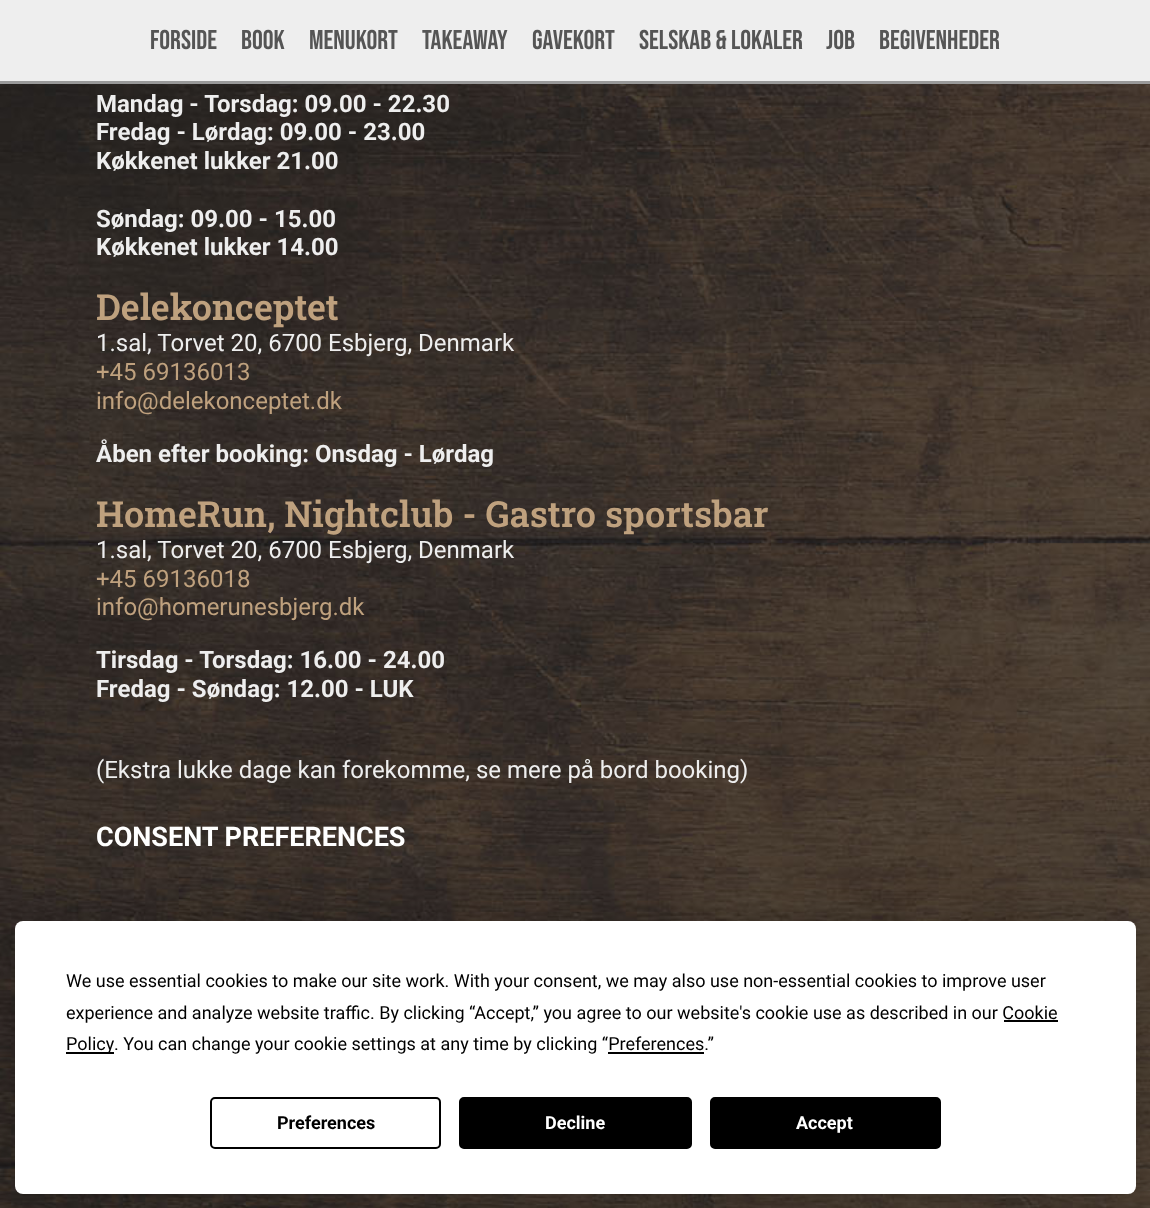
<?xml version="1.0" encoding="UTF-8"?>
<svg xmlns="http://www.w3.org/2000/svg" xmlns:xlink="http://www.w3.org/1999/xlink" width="1150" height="1208">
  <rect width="100%" height="100%" fill="#ffffff" />
  <rect width="1150" height="81" fill="#eeeeee" />
  <rect y="81" width="1150" height="3" fill="#999999" />
  <image x="0" y="84" width="1150" height="1124" xlink:href="image1.png" />
  <rect x="15" y="921" width="1121" height="273" rx="8" fill="#000000" fill-opacity="0.25" filter="blur(26px)" />
  <rect x="15" y="921" width="1121" height="273" rx="8" fill="#ffffff" />
  <rect x="1004" y="1020" width="54" height="2" fill="#000000" />
  <rect x="66" y="1052" width="48" height="2" fill="#000000" />
  <rect x="608" y="1052" width="96" height="2" fill="#000000" />
  <rect x="211" y="1098" width="229" height="50" rx="4" fill="none" stroke="#000000" stroke-width="2" />
  <rect x="460" y="1098" width="231" height="50" rx="4" fill="#000000" stroke="#000000" stroke-width="2" />
  <rect x="711" y="1098" width="229" height="50" rx="4" fill="#000000" stroke="#000000" stroke-width="2" />
  <text x="150" y="49" style="font-family: Bebas Neue; font-size: 27px; fill: #555555">Forside</text>
  <text x="241" y="49" style="font-family: Bebas Neue; font-size: 27px; fill: #555555">Book</text>
  <text x="309" y="49" style="font-family: Bebas Neue; font-size: 27px; fill: #555555">Menukort</text>
  <text x="422" y="49" style="font-family: Bebas Neue; font-size: 27px; fill: #555555">Takeaway</text>
  <text x="532" y="49" style="font-family: Bebas Neue; font-size: 27px; fill: #555555">Gavekort</text>
  <text x="639" y="49" style="font-family: Bebas Neue; font-size: 27px; fill: #555555">Selskab &amp; lokaler</text>
  <text x="826" y="49" style="font-family: Bebas Neue; font-size: 27px; fill: #555555">Job</text>
  <text x="879" y="49" style="font-family: Bebas Neue; font-size: 27px; fill: #555555">Begivenheder</text>
  <text x="96" y="112" style="font-family: Roboto; font-size: 24px; font-weight: bold; fill: #eeeeee">Mandag - Torsdag: 09.00 - 22.30</text>
  <text x="96" y="140" style="font-family: Roboto; font-size: 24px; font-weight: bold; fill: #eeeeee">Fredag - Lørdag: 09.00 - 23.00</text>
  <text x="96" y="169" style="font-family: Roboto; font-size: 24px; font-weight: bold; fill: #eeeeee">Køkkenet lukker 21.00</text>
  <text x="96" y="227" style="font-family: Roboto; font-size: 24px; font-weight: bold; fill: #eeeeee">Søndag: 09.00 - 15.00</text>
  <text x="96" y="255" style="font-family: Roboto; font-size: 24px; font-weight: bold; fill: #eeeeee">Køkkenet lukker 14.00</text>
  <text x="96" y="320" style="font-family: Roboto Slab; font-size: 36px; font-weight: 600; fill: #bfa17e">Delekonceptet</text>
  <text x="96" y="351" style="font-family: Roboto; font-size: 24px; fill: #eeeeee">1.sal, Torvet 20, 6700 Esbjerg, Denmark</text>
  <text x="96" y="380" style="font-family: Roboto; font-size: 24px; fill: #bfa17e">+45 69136013</text>
  <text x="96" y="409" style="font-family: Roboto; font-size: 24px; fill: #bfa17e">info@delekonceptet.dk</text>
  <text x="96" y="462" style="font-family: Roboto; font-size: 24px; font-weight: bold; fill: #eeeeee">Åben efter booking: Onsdag - Lørdag</text>
  <text x="96" y="527" style="font-family: Roboto Slab; font-size: 36px; font-weight: 600; fill: #bfa17e">HomeRun, Nightclub - Gastro sportsbar</text>
  <text x="96" y="558" style="font-family: Roboto; font-size: 24px; fill: #eeeeee">1.sal, Torvet 20, 6700 Esbjerg, Denmark</text>
  <text x="96" y="587" style="font-family: Roboto; font-size: 24px; fill: #bfa17e">+45 69136018</text>
  <text x="96" y="615" style="font-family: Roboto; font-size: 24px; fill: #bfa17e">info@homerunesbjerg.dk</text>
  <text x="96" y="668" style="font-family: Roboto; font-size: 24px; font-weight: bold; fill: #eeeeee">Tirsdag - Torsdag: 16.00 - 24.00</text>
  <text x="96" y="697" style="font-family: Roboto; font-size: 24px; font-weight: bold; fill: #eeeeee">Fredag - Søndag: 12.00 - LUK</text>
  <text x="96" y="778" style="font-family: Roboto; font-size: 24px; fill: #eeeeee">(Ekstra lukke dage kan forekomme, se mere på bord booking)</text>
  <text x="96" y="846" style="font-family: Roboto; font-size: 27px; font-weight: bold; fill: #ffffff">CONSENT PREFERENCES</text>
  <text x="66" y="987" style="font-family: Roboto; font-size: 18px; fill: #000000">We use essential cookies to make our site work. With your consent, we may also use non-essential cookies to improve user</text>
  <text x="66" y="1019" style="font-family: Roboto; font-size: 18px; fill: #000000">experience and analyze website traffic. By clicking “Accept,” you agree to our website's cookie use as described in our Cookie</text>
  <text x="66" y="1050" style="font-family: Roboto; font-size: 18px; fill: #000000">Policy</text>
  <text x="114" y="1050" style="font-family: Roboto; font-size: 18px; fill: #000000">. You can change your cookie settings at any time by clicking “Preferences.”</text>
  <text x="277" y="1129" style="font-family: Roboto; font-size: 18px; font-weight: bold; fill: #000000">Preferences</text>
  <text x="545" y="1129" style="font-family: Roboto; font-size: 18px; font-weight: bold; fill: #ffffff">Decline</text>
  <text x="796" y="1129" style="font-family: Roboto; font-size: 18px; font-weight: bold; fill: #ffffff">Accept</text>
</svg>
